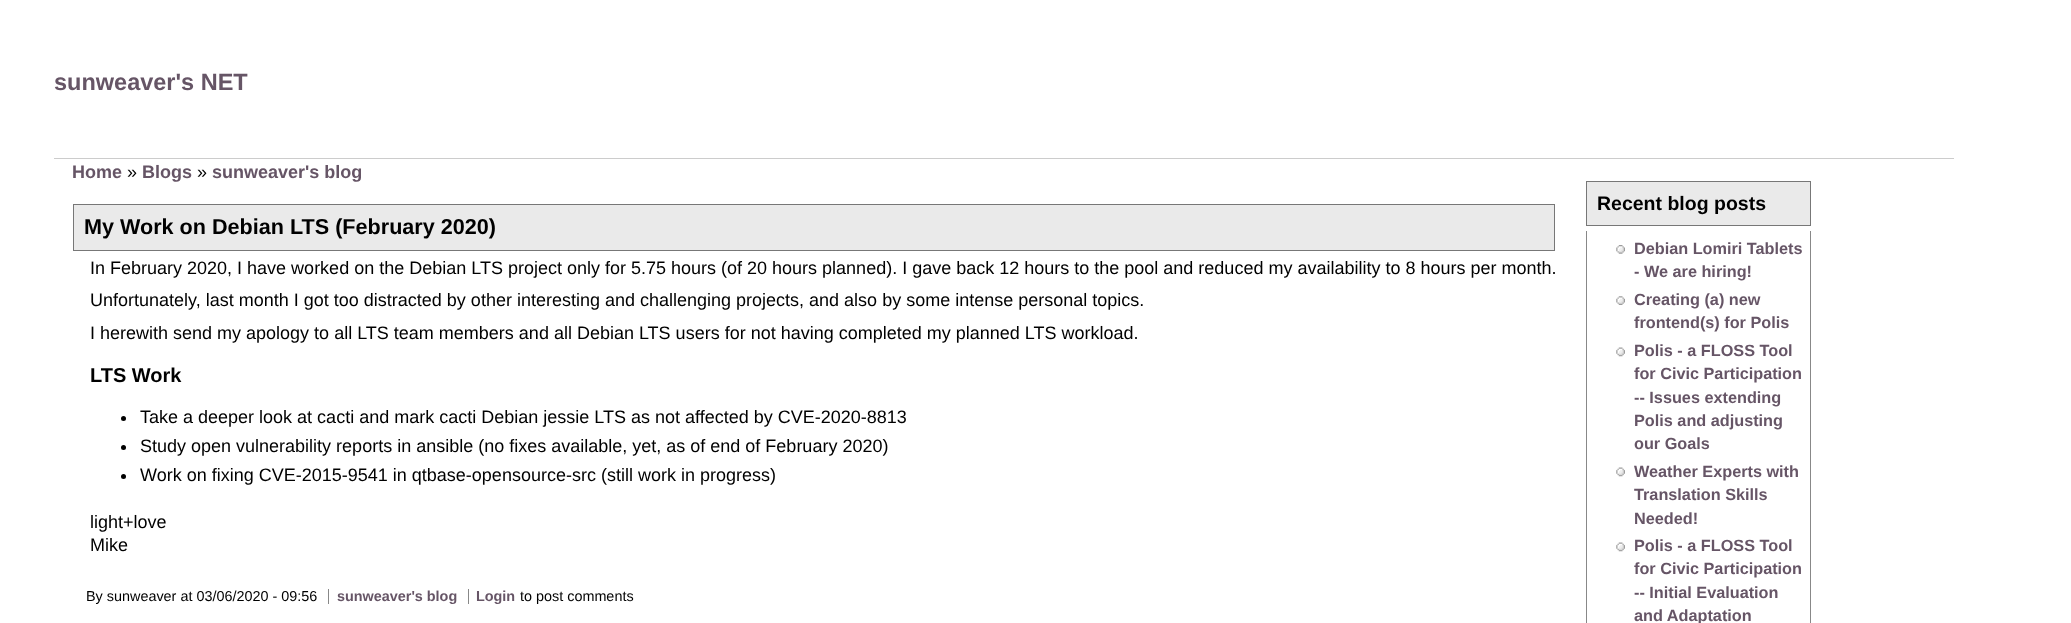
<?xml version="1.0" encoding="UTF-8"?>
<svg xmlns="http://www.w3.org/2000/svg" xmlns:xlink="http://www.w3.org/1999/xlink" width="2071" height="623">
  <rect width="100%" height="100%" fill="#ffffff" />
  <rect x="54" y="158" width="1900" height="1" fill="#cccccc" />
  <rect x="73.5" y="204.5" width="1481" height="46" fill="#eaeaea" stroke="#777777" />
  <circle cx="123.5" cy="418.5" r="2.5" fill="#000000" />
  <circle cx="123.5" cy="447.5" r="2.5" fill="#000000" />
  <circle cx="123.5" cy="476.5" r="2.5" fill="#000000" />
  <rect x="328" y="589" width="1" height="15" fill="#888888" />
  <rect x="468" y="589" width="1" height="15" fill="#888888" />
  <rect x="1586.5" y="181.5" width="224" height="44" fill="#eaeaea" stroke="#777777" />
  <rect x="1810" y="231" width="1" height="392" fill="#888888" />
  <rect x="1586" y="231" width="1" height="392" fill="#888888" />
  <image x="1616" y="245" width="9" height="9" xlink:href="image1.png" />
  <image x="1616" y="296" width="9" height="9" xlink:href="image2.png" />
  <image x="1616" y="347" width="9" height="10" xlink:href="image3.png" />
  <image x="1616" y="467" width="9" height="10" xlink:href="image3.png" />
  <image x="1616" y="542" width="9" height="10" xlink:href="image3.png" />
  <text x="54" y="90" style="font-family: Liberation Sans; font-size: 23.5px; font-weight: bold; fill: #665566">sunweaver's NET</text>
  <text x="72" y="178" style="font-family: Liberation Sans; font-size: 18px; font-weight: bold; fill: #665566">Home</text>
  <text x="127" y="178" style="font-family: Liberation Sans; font-size: 18px; fill: #000000">»</text>
  <text x="142" y="178" style="font-family: Liberation Sans; font-size: 18px; font-weight: bold; fill: #665566">Blogs</text>
  <text x="197" y="178" style="font-family: Liberation Sans; font-size: 18px; fill: #000000">»</text>
  <text x="212" y="178" style="font-family: Liberation Sans; font-size: 18px; font-weight: bold; fill: #665566">sunweaver's blog</text>
  <text x="84" y="234" style="font-family: Liberation Sans; font-size: 21.6px; font-weight: bold; fill: #000000">My Work on Debian LTS (February 2020)</text>
  <text x="90" y="274" style="font-family: Liberation Sans; font-size: 18px; fill: #000000">In February 2020, I have worked on the Debian LTS project only for 5.75 hours (of 20 hours planned). I gave back 12 hours to the pool and reduced my availability to 8 hours per month.</text>
  <text x="90" y="306" style="font-family: Liberation Sans; font-size: 18px; fill: #000000">Unfortunately, last month I got too distracted by other interesting and challenging projects, and also by some intense personal topics.</text>
  <text x="90" y="339" style="font-family: Liberation Sans; font-size: 18px; fill: #000000">I herewith send my apology to all LTS team members and all Debian LTS users for not having completed my planned LTS workload.</text>
  <text x="90" y="382" style="font-family: Liberation Sans; font-size: 20px; font-weight: bold; fill: #000000">LTS Work</text>
  <text x="140" y="423" style="font-family: Liberation Sans; font-size: 18px; fill: #000000">Take a deeper look at cacti and mark cacti Debian jessie LTS as not affected by CVE-2020-8813</text>
  <text x="140" y="452" style="font-family: Liberation Sans; font-size: 18px; fill: #000000">Study open vulnerability reports in ansible (no fixes available, yet, as of end of February 2020)</text>
  <text x="140" y="481" style="font-family: Liberation Sans; font-size: 18px; fill: #000000">Work on fixing CVE-2015-9541 in qtbase-opensource-src (still work in progress)</text>
  <text x="90" y="528" style="font-family: Liberation Sans; font-size: 18px; fill: #000000">light+love</text>
  <text x="90" y="551" style="font-family: Liberation Sans; font-size: 18px; fill: #000000">Mike</text>
  <text x="86" y="601" style="font-family: Liberation Sans; font-size: 14.4px; fill: #000000">By sunweaver at 03/06/2020 - 09:56</text>
  <text x="337" y="601" style="font-family: Liberation Sans; font-size: 14.4px; font-weight: bold; fill: #665566">sunweaver's blog</text>
  <text x="476" y="601" style="font-family: Liberation Sans; font-size: 14.4px; font-weight: bold; fill: #665566">Login</text>
  <text x="520" y="601" style="font-family: Liberation Sans; font-size: 14.4px; fill: #000000">to post comments</text>
  <text x="1597" y="210" style="font-family: Liberation Sans; font-size: 19.5px; font-weight: bold; fill: #000000">Recent blog posts</text>
  <text x="1634" y="254" style="font-family: Liberation Sans; font-size: 16.25px; font-weight: bold; fill: #665566">Debian Lomiri Tablets</text>
  <text x="1634" y="277" style="font-family: Liberation Sans; font-size: 16.25px; font-weight: bold; fill: #665566">- We are hiring!</text>
  <text x="1634" y="305" style="font-family: Liberation Sans; font-size: 16.25px; font-weight: bold; fill: #665566">Creating (a) new</text>
  <text x="1634" y="328" style="font-family: Liberation Sans; font-size: 16.25px; font-weight: bold; fill: #665566">frontend(s) for Polis</text>
  <text x="1634" y="356" style="font-family: Liberation Sans; font-size: 16.25px; font-weight: bold; fill: #665566">Polis - a FLOSS Tool</text>
  <text x="1634" y="379" style="font-family: Liberation Sans; font-size: 16.25px; font-weight: bold; fill: #665566">for Civic Participation</text>
  <text x="1634" y="403" style="font-family: Liberation Sans; font-size: 16.25px; font-weight: bold; fill: #665566">-- Issues extending</text>
  <text x="1634" y="426" style="font-family: Liberation Sans; font-size: 16.25px; font-weight: bold; fill: #665566">Polis and adjusting</text>
  <text x="1634" y="449" style="font-family: Liberation Sans; font-size: 16.25px; font-weight: bold; fill: #665566">our Goals</text>
  <text x="1634" y="477" style="font-family: Liberation Sans; font-size: 16.25px; font-weight: bold; fill: #665566">Weather Experts with</text>
  <text x="1634" y="500" style="font-family: Liberation Sans; font-size: 16.25px; font-weight: bold; fill: #665566">Translation Skills</text>
  <text x="1634" y="524" style="font-family: Liberation Sans; font-size: 16.25px; font-weight: bold; fill: #665566">Needed!</text>
  <text x="1634" y="551" style="font-family: Liberation Sans; font-size: 16.25px; font-weight: bold; fill: #665566">Polis - a FLOSS Tool</text>
  <text x="1634" y="574" style="font-family: Liberation Sans; font-size: 16.25px; font-weight: bold; fill: #665566">for Civic Participation</text>
  <text x="1634" y="598" style="font-family: Liberation Sans; font-size: 16.25px; font-weight: bold; fill: #665566">-- Initial Evaluation</text>
  <text x="1634" y="621" style="font-family: Liberation Sans; font-size: 16.25px; font-weight: bold; fill: #665566">and Adaptation</text>
</svg>
